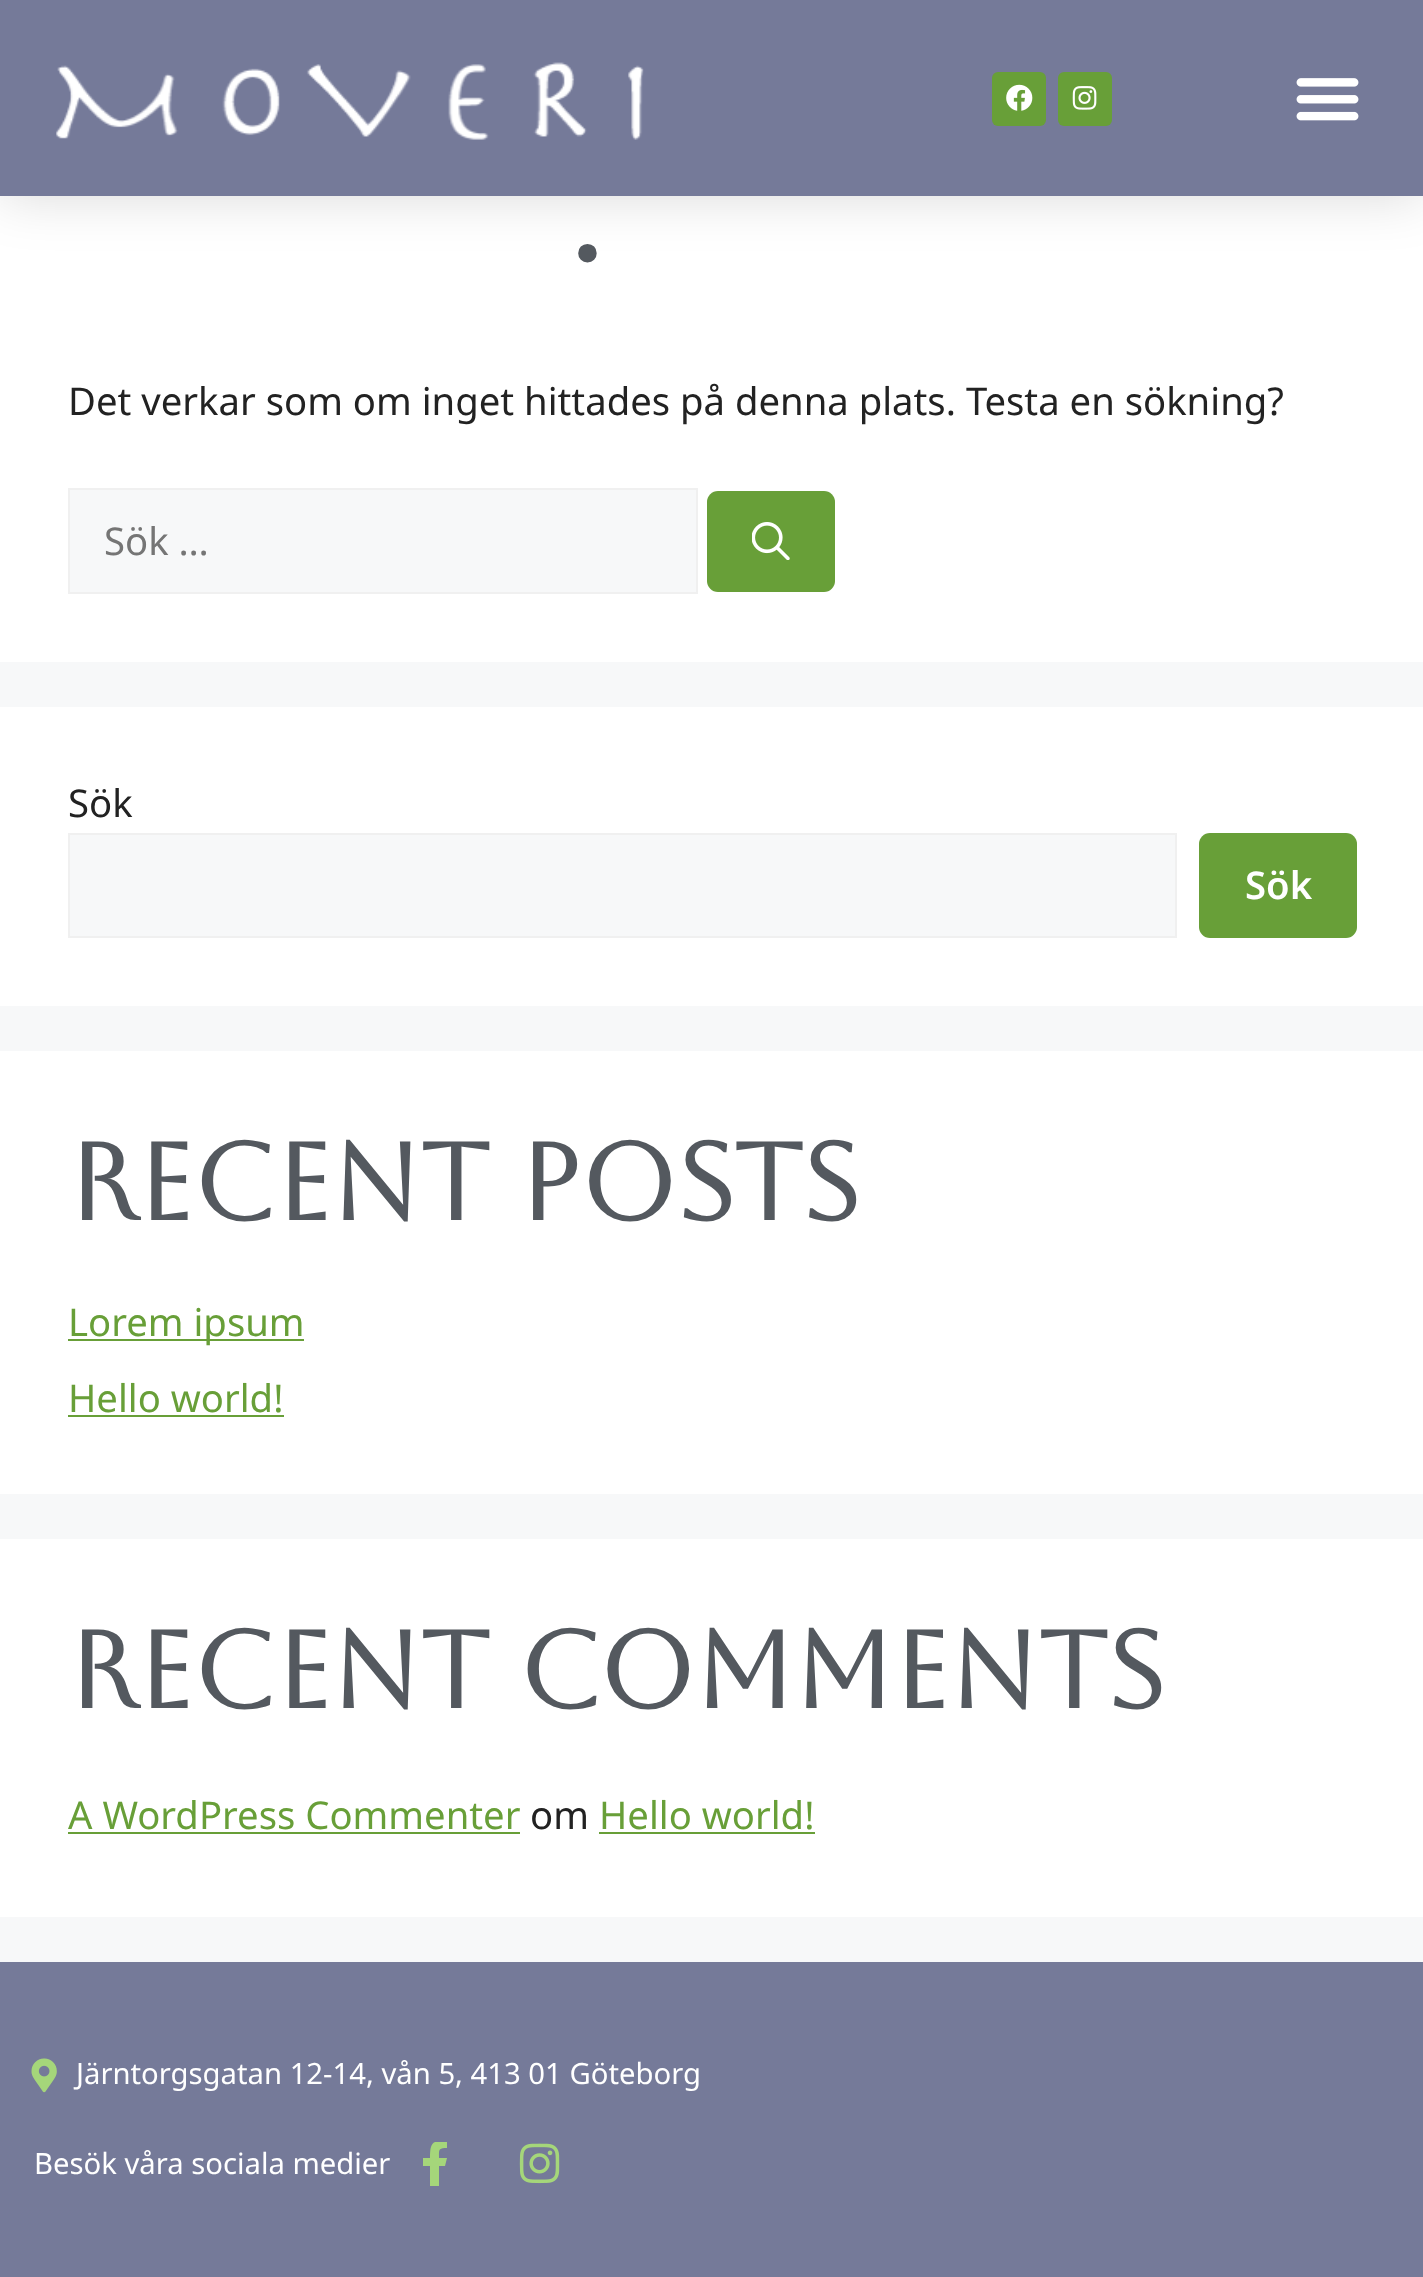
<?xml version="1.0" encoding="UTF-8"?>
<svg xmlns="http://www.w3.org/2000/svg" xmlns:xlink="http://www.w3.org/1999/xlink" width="1423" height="2277">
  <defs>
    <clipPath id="clip1"><rect x="23" y="2142" width="1237" height="45" /></clipPath>
  </defs>
  <rect width="100%" height="100%" fill="#f7f8f9" />
  <rect y="196" width="1423" height="466" fill="#ffffff" />
  <rect width="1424" height="196" fill="#000000" fill-opacity="0.15" filter="blur(27px)" />
  <rect width="1423" height="196" fill="#757a99" />
  <image x="56" y="62" width="588" height="78" xlink:href="image1.png" />
  <rect x="992" y="72" width="54" height="54" rx="6" fill="#689f38" />
  <image x="1006" y="84" width="27" height="27" xlink:href="image2.png" />
  <rect x="1058" y="72" width="54" height="54" rx="6" fill="#689f38" />
  <image x="1072" y="86" width="25" height="24" xlink:href="image3.png" />
  <image x="1296" y="78" width="63" height="43" xlink:href="image4.png" />
  <rect x="69" y="489" width="628" height="104" fill="#f7f8f9" stroke="#f0f0f0" stroke-width="2" />
  <rect x="707" y="491" width="128" height="101" rx="11" fill="#689f38" />
  <image x="752" y="522" width="38" height="38" xlink:href="image5.png" />
  <rect y="707" width="1423" height="299" fill="#ffffff" />
  <rect x="69" y="834" width="1107" height="103" fill="#f7f8f9" stroke="#f0f0f0" stroke-width="2" />
  <rect x="1199" y="833" width="158" height="105" rx="11" fill="#689f38" />
  <rect y="1051" width="1423" height="443" fill="#ffffff" />
  <rect x="68" y="1339" width="236" height="2" fill="#689f38" />
  <rect x="68" y="1415" width="216" height="2" fill="#689f38" />
  <rect y="1539" width="1423" height="378" fill="#ffffff" />
  <rect x="68" y="1832" width="452" height="2" fill="#689f38" />
  <rect x="599" y="1832" width="216" height="2" fill="#689f38" />
  <rect y="1962" width="1423" height="315" fill="#757a99" />
  <image x="31" y="2058" width="26" height="35" xlink:href="image6.png" />
  <g clip-path="url(#clip1)">
    <path d="M 445 2166 h -6 v 20 h -9 v -20 h -7 v -8 h 7 c 0 -15 2 -18 17 -17 v 7 c -9 0 -8 2 -8 10 h 8 z" fill="#a5d67a" />
  </g>
  <image x="519" y="2143" width="41" height="41" xlink:href="image7.png" />
  <text x="567" y="261" style="font-family: Aboreto; font-size: 140px; font-weight: bold; fill: #54595f">.</text>
  <text x="68" y="415" style="font-family: Noto Sans; font-size: 38.25px; fill: #222222">Det verkar som om inget hittades på denna plats. Testa en sökning?</text>
  <text x="104" y="555" style="font-family: Noto Sans; font-size: 38.25px; fill: #757575">Sök …</text>
  <text x="68" y="817" style="font-family: Noto Sans; font-size: 38.25px; fill: #222222">Sök</text>
  <text x="1245" y="899" style="font-family: Noto Sans; font-size: 38.25px; font-weight: 600; fill: #ffffff">Sök</text>
  <text x="68" y="1220" style="font-family: Aboreto; font-size: 108px; font-weight: bold; fill: #54595f">Recent Posts</text>
  <text x="68" y="1336" style="font-family: Noto Sans; font-size: 38.25px; fill: #689f38">Lorem ipsum</text>
  <text x="68" y="1412" style="font-family: Noto Sans; font-size: 38.25px; fill: #689f38">Hello world!</text>
  <text x="68" y="1708" style="font-family: Aboreto; font-size: 108px; font-weight: bold; fill: #54595f">Recent Comments</text>
  <text x="68" y="1829" style="font-family: Noto Sans; font-size: 38.25px; fill: #689f38">A WordPress Commenter</text>
  <text x="530" y="1829" style="font-family: Noto Sans; font-size: 38.25px; fill: #222222">om</text>
  <text x="599" y="1829" style="font-family: Noto Sans; font-size: 38.25px; fill: #689f38">Hello world!</text>
  <text x="76" y="2084" style="font-family: Noto Sans; font-size: 29.25px; fill: #ffffff">Järntorgsgatan 12-14, vån 5, 413 01 Göteborg</text>
  <text x="34" y="2174" style="font-family: Noto Sans; font-size: 29.25px; fill: #ffffff">Besök våra sociala medier</text>
</svg>
